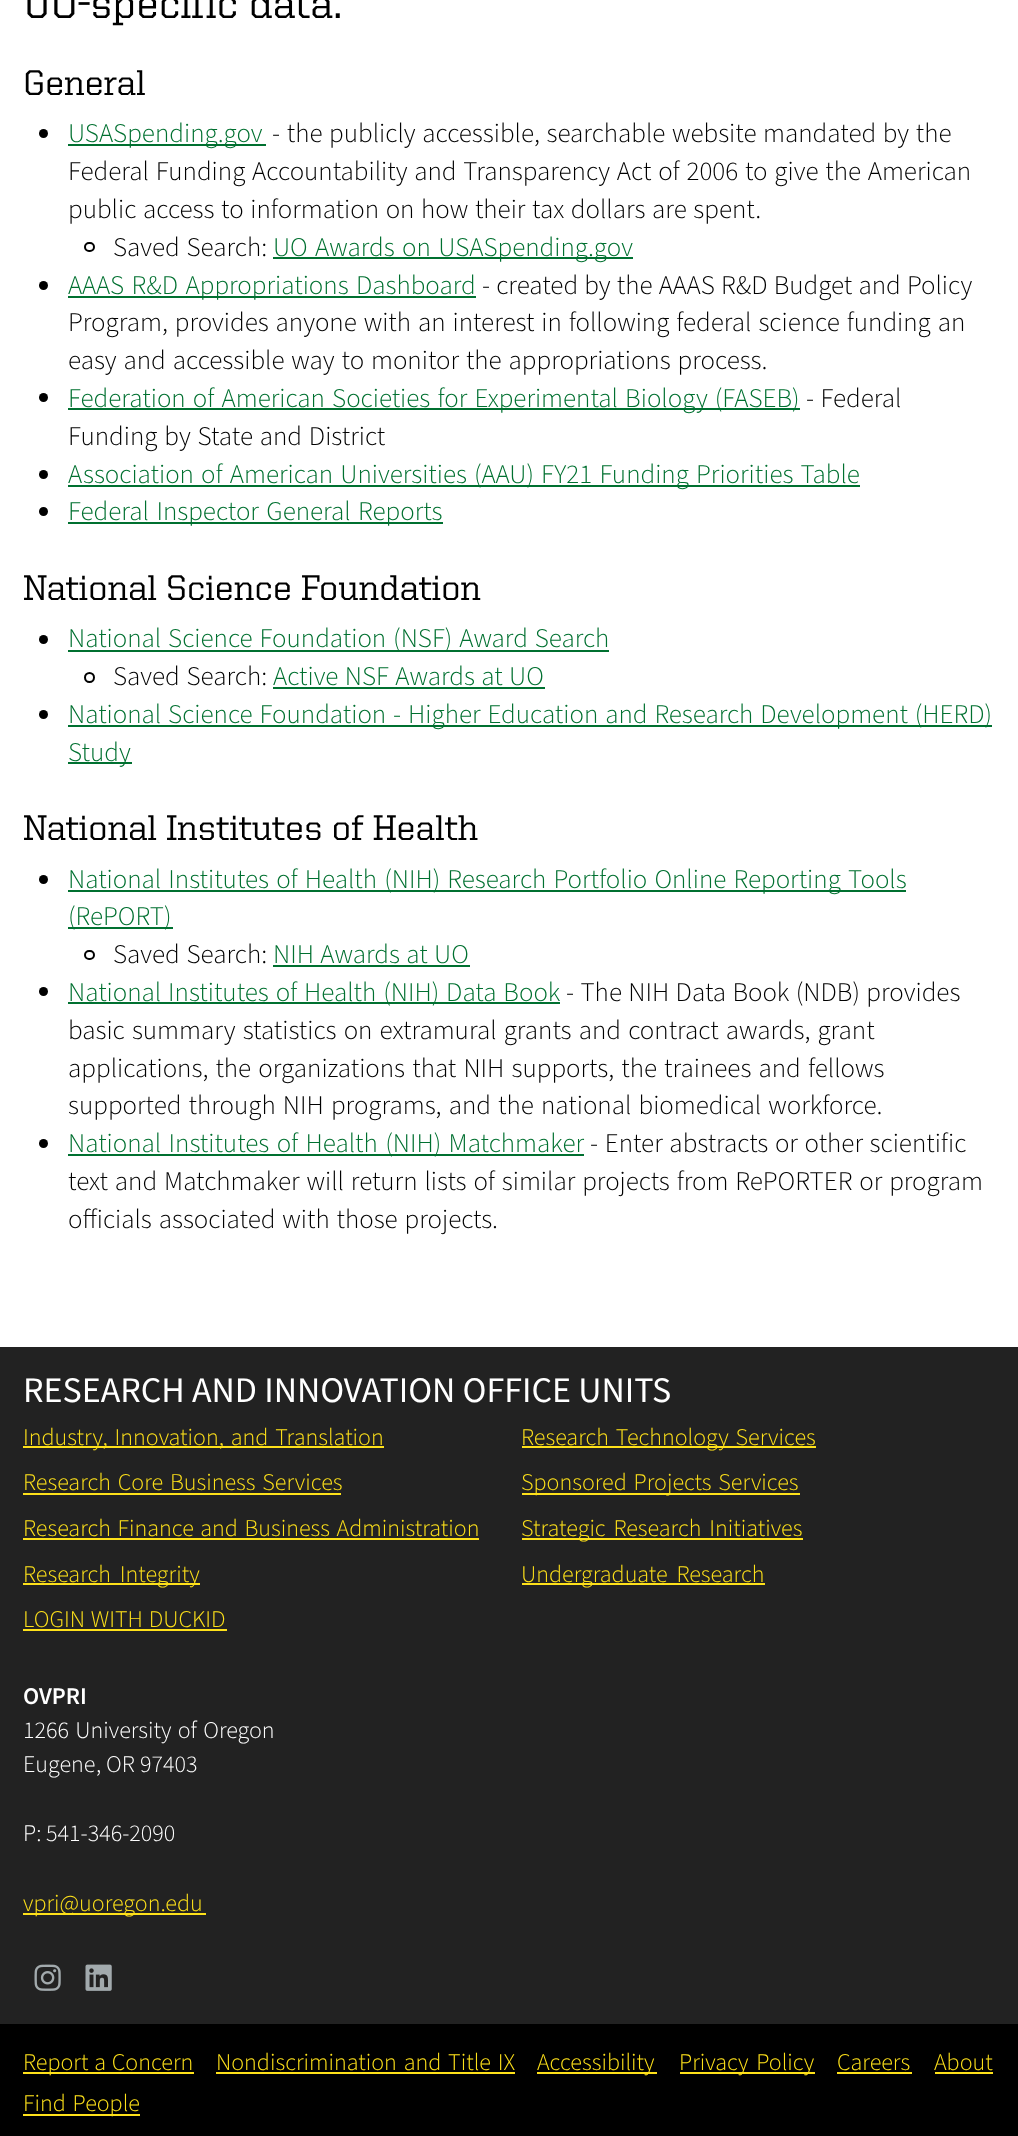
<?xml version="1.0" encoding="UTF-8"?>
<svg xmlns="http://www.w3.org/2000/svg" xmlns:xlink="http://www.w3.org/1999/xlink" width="1018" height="2136">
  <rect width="100%" height="100%" fill="#000000" />
  <rect width="1018" height="1347" fill="#ffffff" />
  <circle cx="43.5" cy="133.5" r="4.5" fill="#000000" />
  <rect x="68" y="144" width="198" height="2" fill="#007030" />
  <rect x="85" y="243" width="9" height="8" rx="4" fill="none" stroke="#000000" stroke-width="2" />
  <rect x="273" y="257" width="360" height="2" fill="#007030" />
  <circle cx="43.5" cy="285.5" r="4.5" fill="#000000" />
  <rect x="68" y="296" width="408" height="2" fill="#007030" />
  <circle cx="43.5" cy="397.5" r="4.5" fill="#000000" />
  <rect x="68" y="408" width="732" height="2" fill="#007030" />
  <circle cx="43.5" cy="474.5" r="4.5" fill="#000000" />
  <rect x="68" y="485" width="792" height="2" fill="#007030" />
  <circle cx="43.5" cy="511.5" r="4.5" fill="#000000" />
  <rect x="68" y="522" width="375" height="2" fill="#007030" />
  <circle cx="43.5" cy="639.5" r="4.5" fill="#000000" />
  <rect x="68" y="650" width="541" height="2" fill="#007030" />
  <circle cx="89.5" cy="677.5" r="4.5" fill="none" stroke="#000000" stroke-width="2" />
  <rect x="273" y="687" width="272" height="2" fill="#007030" />
  <circle cx="43.5" cy="714.5" r="4.5" fill="#000000" />
  <rect x="68" y="725" width="924" height="2" fill="#007030" />
  <rect x="68" y="762" width="64" height="2" fill="#007030" />
  <circle cx="43.5" cy="879.5" r="4.5" fill="#000000" />
  <rect x="68" y="890" width="838" height="2" fill="#007030" />
  <rect x="68" y="927" width="105" height="2" fill="#007030" />
  <rect x="85" y="951" width="9" height="8" rx="4" fill="none" stroke="#000000" stroke-width="2" />
  <rect x="273" y="965" width="197" height="2" fill="#007030" />
  <circle cx="43.5" cy="991.5" r="4.5" fill="#000000" />
  <rect x="68" y="1002" width="492" height="2" fill="#007030" />
  <circle cx="43.5" cy="1143.5" r="4.5" fill="#000000" />
  <rect x="68" y="1154" width="516" height="2" fill="#007030" />
  <rect y="1347" width="1018" height="677" fill="#222222" />
  <rect x="23" y="1446" width="361" height="2" fill="#fee11a" />
  <rect x="522" y="1446" width="294" height="2" fill="#fee11a" />
  <rect x="23" y="1493" width="318" height="2" fill="#fee11a" />
  <rect x="522" y="1493" width="278" height="2" fill="#fee11a" />
  <rect x="23" y="1538" width="456" height="2" fill="#fee11a" />
  <rect x="522" y="1538" width="281" height="2" fill="#fee11a" />
  <rect x="23" y="1583" width="177" height="2" fill="#fee11a" />
  <rect x="522" y="1583" width="243" height="2" fill="#fee11a" />
  <rect x="23" y="1629" width="204" height="2" fill="#fee11a" />
  <rect x="23" y="1913" width="183" height="2" fill="#fee11a" />
  <image x="34" y="1964" width="27" height="27" xlink:href="image1.png" />
  <image x="85" y="1964" width="27" height="27" xlink:href="image2.png" />
  <rect x="23" y="2072" width="171" height="2" fill="#fee11a" />
  <rect x="216" y="2072" width="299" height="2" fill="#fee11a" />
  <rect x="537" y="2072" width="120" height="2" fill="#fee11a" />
  <rect x="680" y="2072" width="135" height="2" fill="#fee11a" />
  <rect x="837" y="2072" width="75" height="2" fill="#fee11a" />
  <rect x="935" y="2072" width="58" height="2" fill="#fee11a" />
  <rect x="23" y="2114" width="117" height="2" fill="#fee11a" />
  <text x="23" y="18" style="font-family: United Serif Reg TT; font-size: 42px; font-weight: 500; fill: #000000">UO-specific data.</text>
  <text x="23" y="95" style="font-family: United Serif Reg TT; font-size: 36px; font-weight: 500; fill: #000000">General</text>
  <text x="68" y="142" style="font-family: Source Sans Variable; font-size: 27px; font-weight: 300; fill: #007030">USASpending.gov</text>
  <text x="272" y="142" word-spacing="1.25" style="font-family: Source Sans Variable; font-size: 27px; font-weight: 300; fill: #000000">- the publicly accessible, searchable website mandated by the</text>
  <text x="68" y="180" word-spacing="1.4" style="font-family: Source Sans Variable; font-size: 27px; font-weight: 300; fill: #000000">Federal Funding Accountability and Transparency Act of 2006 to give the American</text>
  <text x="68" y="218" word-spacing="1.25" style="font-family: Source Sans Variable; font-size: 27px; font-weight: 300; fill: #000000">public access to information on how their tax dollars are spent.</text>
  <text x="113" y="256" word-spacing="1.4" style="font-family: Source Sans Variable; font-size: 27px; font-weight: 300; fill: #000000">Saved Search:</text>
  <text x="273" y="256" word-spacing="2" style="font-family: Source Sans Variable; font-size: 27px; font-weight: 300; fill: #007030">UO Awards on USASpending.gov</text>
  <text x="68" y="294" word-spacing="2" style="font-family: Source Sans Variable; font-size: 27px; font-weight: 300; fill: #007030">AAAS R&amp;D Appropriations Dashboard</text>
  <text x="482" y="294" word-spacing="0.75" style="font-family: Source Sans Variable; font-size: 27px; font-weight: 300; fill: #000000">- created by the AAAS R&amp;D Budget and Policy</text>
  <text x="68" y="331" word-spacing="1.5" style="font-family: Source Sans Variable; font-size: 27px; font-weight: 300; fill: #000000">Program, provides anyone with an interest in following federal science funding an</text>
  <text x="68" y="369" word-spacing="1.5" style="font-family: Source Sans Variable; font-size: 27px; font-weight: 300; fill: #000000">easy and accessible way to monitor the appropriations process.</text>
  <text x="68" y="407" word-spacing="1.75" style="font-family: Source Sans Variable; font-size: 27px; font-weight: 300; fill: #007030">Federation of American Societies for Experimental Biology (FASEB)</text>
  <text x="806" y="407" word-spacing="1" style="font-family: Source Sans Variable; font-size: 27px; font-weight: 300; fill: #000000">- Federal</text>
  <text x="68" y="445" word-spacing="1.4" style="font-family: Source Sans Variable; font-size: 27px; font-weight: 300; fill: #000000">Funding by State and District</text>
  <text x="68" y="483" word-spacing="1.75" style="font-family: Source Sans Variable; font-size: 27px; font-weight: 300; fill: #007030">Association of American Universities (AAU) FY21 Funding Priorities Table</text>
  <text x="68" y="520" word-spacing="2" style="font-family: Source Sans Variable; font-size: 27px; font-weight: 300; fill: #007030">Federal Inspector General Reports</text>
  <text x="23" y="600" style="font-family: United Serif Reg TT; font-size: 36px; font-weight: 500; fill: #000000">National Science Foundation</text>
  <text x="68" y="647" word-spacing="1.5" style="font-family: Source Sans Variable; font-size: 27px; font-weight: 300; fill: #007030">National Science Foundation (NSF) Award Search</text>
  <text x="113" y="685" word-spacing="1.4" style="font-family: Source Sans Variable; font-size: 27px; font-weight: 300; fill: #000000">Saved Search:</text>
  <text x="273" y="685" word-spacing="1" style="font-family: Source Sans Variable; font-size: 27px; font-weight: 300; fill: #007030">Active NSF Awards at UO</text>
  <text x="68" y="723" word-spacing="1.5" style="font-family: Source Sans Variable; font-size: 27px; font-weight: 300; fill: #007030">National Science Foundation - Higher Education and Research Development (HERD)</text>
  <text x="68" y="761" style="font-family: Source Sans Variable; font-size: 27px; font-weight: 300; fill: #007030">Study</text>
  <text x="23" y="840" style="font-family: United Serif Reg TT; font-size: 36px; font-weight: 500; fill: #000000">National Institutes of Health</text>
  <text x="68" y="888" word-spacing="1.75" style="font-family: Source Sans Variable; font-size: 27px; font-weight: 300; fill: #007030">National Institutes of Health (NIH) Research Portfolio Online Reporting Tools</text>
  <text x="68" y="925" style="font-family: Source Sans Variable; font-size: 27px; font-weight: 300; fill: #007030">(RePORT)</text>
  <text x="113" y="963" word-spacing="1.4" style="font-family: Source Sans Variable; font-size: 27px; font-weight: 300; fill: #000000">Saved Search:</text>
  <text x="273" y="963" word-spacing="1" style="font-family: Source Sans Variable; font-size: 27px; font-weight: 300; fill: #007030">NIH Awards at UO</text>
  <text x="68" y="1001" word-spacing="1.5" style="font-family: Source Sans Variable; font-size: 27px; font-weight: 300; fill: #007030">National Institutes of Health (NIH) Data Book</text>
  <text x="566" y="1001" word-spacing="1" style="font-family: Source Sans Variable; font-size: 27px; font-weight: 300; fill: #000000">- The NIH Data Book (NDB) provides</text>
  <text x="68" y="1039" word-spacing="1.75" style="font-family: Source Sans Variable; font-size: 27px; font-weight: 300; fill: #000000">basic summary statistics on extramural grants and contract awards, grant</text>
  <text x="68" y="1077" word-spacing="1.75" style="font-family: Source Sans Variable; font-size: 27px; font-weight: 300; fill: #000000">applications, the organizations that NIH supports, the trainees and fellows</text>
  <text x="68" y="1114" word-spacing="1.75" style="font-family: Source Sans Variable; font-size: 27px; font-weight: 300; fill: #000000">supported through NIH programs, and the national biomedical workforce.</text>
  <text x="68" y="1152" word-spacing="2" style="font-family: Source Sans Variable; font-size: 27px; font-weight: 300; fill: #007030">National Institutes of Health (NIH) Matchmaker</text>
  <text x="590" y="1152" word-spacing="1.25" style="font-family: Source Sans Variable; font-size: 27px; font-weight: 300; fill: #000000">- Enter abstracts or other scientific</text>
  <text x="68" y="1190" word-spacing="1.5" style="font-family: Source Sans Variable; font-size: 27px; font-weight: 300; fill: #000000">text and Matchmaker will return lists of similar projects from RePORTER or program</text>
  <text x="68" y="1228" word-spacing="1.5" style="font-family: Source Sans Variable; font-size: 27px; font-weight: 300; fill: #000000">officials associated with those projects.</text>
  <text x="23" y="1402" style="font-family: Source Sans Variable; font-size: 36px; fill: #ffffff">RESEARCH AND INNOVATION OFFICE UNITS</text>
  <text x="23" y="1445" word-spacing="2" style="font-family: Source Sans Variable; font-size: 24px; font-weight: 300; fill: #fee11a">Industry, Innovation, and Translation</text>
  <text x="521" y="1445" word-spacing="2" style="font-family: Source Sans Variable; font-size: 24px; font-weight: 300; fill: #fee11a">Research Technology Services</text>
  <text x="23" y="1490" word-spacing="2" style="font-family: Source Sans Variable; font-size: 24px; font-weight: 300; fill: #fee11a">Research Core Business Services</text>
  <text x="521" y="1490" word-spacing="2" style="font-family: Source Sans Variable; font-size: 24px; font-weight: 300; fill: #fee11a">Sponsored Projects Services</text>
  <text x="23" y="1536" word-spacing="1.75" style="font-family: Source Sans Variable; font-size: 24px; font-weight: 300; fill: #fee11a">Research Finance and Business Administration</text>
  <text x="521" y="1536" word-spacing="3" style="font-family: Source Sans Variable; font-size: 24px; font-weight: 300; fill: #fee11a">Strategic Research Initiatives</text>
  <text x="23" y="1582" word-spacing="4" style="font-family: Source Sans Variable; font-size: 24px; font-weight: 300; fill: #fee11a">Research Integrity</text>
  <text x="521" y="1582" word-spacing="4" style="font-family: Source Sans Variable; font-size: 24px; font-weight: 300; fill: #fee11a">Undergraduate Research</text>
  <text x="23" y="1627" word-spacing="1" style="font-family: Source Sans Variable; font-size: 24px; font-weight: 300; fill: #fee11a">LOGIN WITH DUCKID</text>
  <text x="23" y="1704" style="font-family: Source Sans Variable; font-size: 24px; font-weight: 600; fill: #ffffff">OVPRI</text>
  <text x="23" y="1738" word-spacing="1.5" style="font-family: Source Sans Variable; font-size: 24px; font-weight: 300; fill: #ffffff">1266 University of Oregon</text>
  <text x="23" y="1772" style="font-family: Source Sans Variable; font-size: 24px; font-weight: 300; fill: #ffffff">Eugene</text>
  <text x="96" y="1772" style="font-family: Source Sans Variable; font-size: 24px; font-weight: 300; fill: #ffffff">,</text>
  <text x="106" y="1772" style="font-family: Source Sans Variable; font-size: 24px; font-weight: 300; fill: #ffffff">OR</text>
  <text x="140" y="1772" style="font-family: Source Sans Variable; font-size: 24px; font-weight: 300; fill: #ffffff">97403</text>
  <text x="23" y="1841" style="font-family: Source Sans Variable; font-size: 24px; font-weight: 300; fill: #ffffff">P:</text>
  <text x="46" y="1841" style="font-family: Source Sans Variable; font-size: 24px; font-weight: 300; fill: #ffffff">541-346-2090</text>
  <text x="23" y="1911" style="font-family: Source Sans Variable; font-size: 24px; font-weight: 300; fill: #fee11a">vpri@uoregon.edu</text>
  <text x="23" y="2070" word-spacing="1" style="font-family: Source Sans Variable; font-size: 24px; font-weight: 300; fill: #fee11a">Report a Concern</text>
  <text x="216" y="2070" word-spacing="2" style="font-family: Source Sans Variable; font-size: 24px; font-weight: 300; fill: #fee11a">Nondiscrimination and Title IX</text>
  <text x="537" y="2070" style="font-family: Source Sans Variable; font-size: 24px; font-weight: 300; fill: #fee11a">Accessibility</text>
  <text x="679" y="2070" word-spacing="3" style="font-family: Source Sans Variable; font-size: 24px; font-weight: 300; fill: #fee11a">Privacy Policy</text>
  <text x="837" y="2070" style="font-family: Source Sans Variable; font-size: 24px; font-weight: 300; fill: #fee11a">Careers</text>
  <text x="934" y="2070" style="font-family: Source Sans Variable; font-size: 24px; font-weight: 300; fill: #fee11a">About</text>
  <text x="23" y="2111" word-spacing="2" style="font-family: Source Sans Variable; font-size: 24px; font-weight: 300; fill: #fee11a">Find People</text>
</svg>
